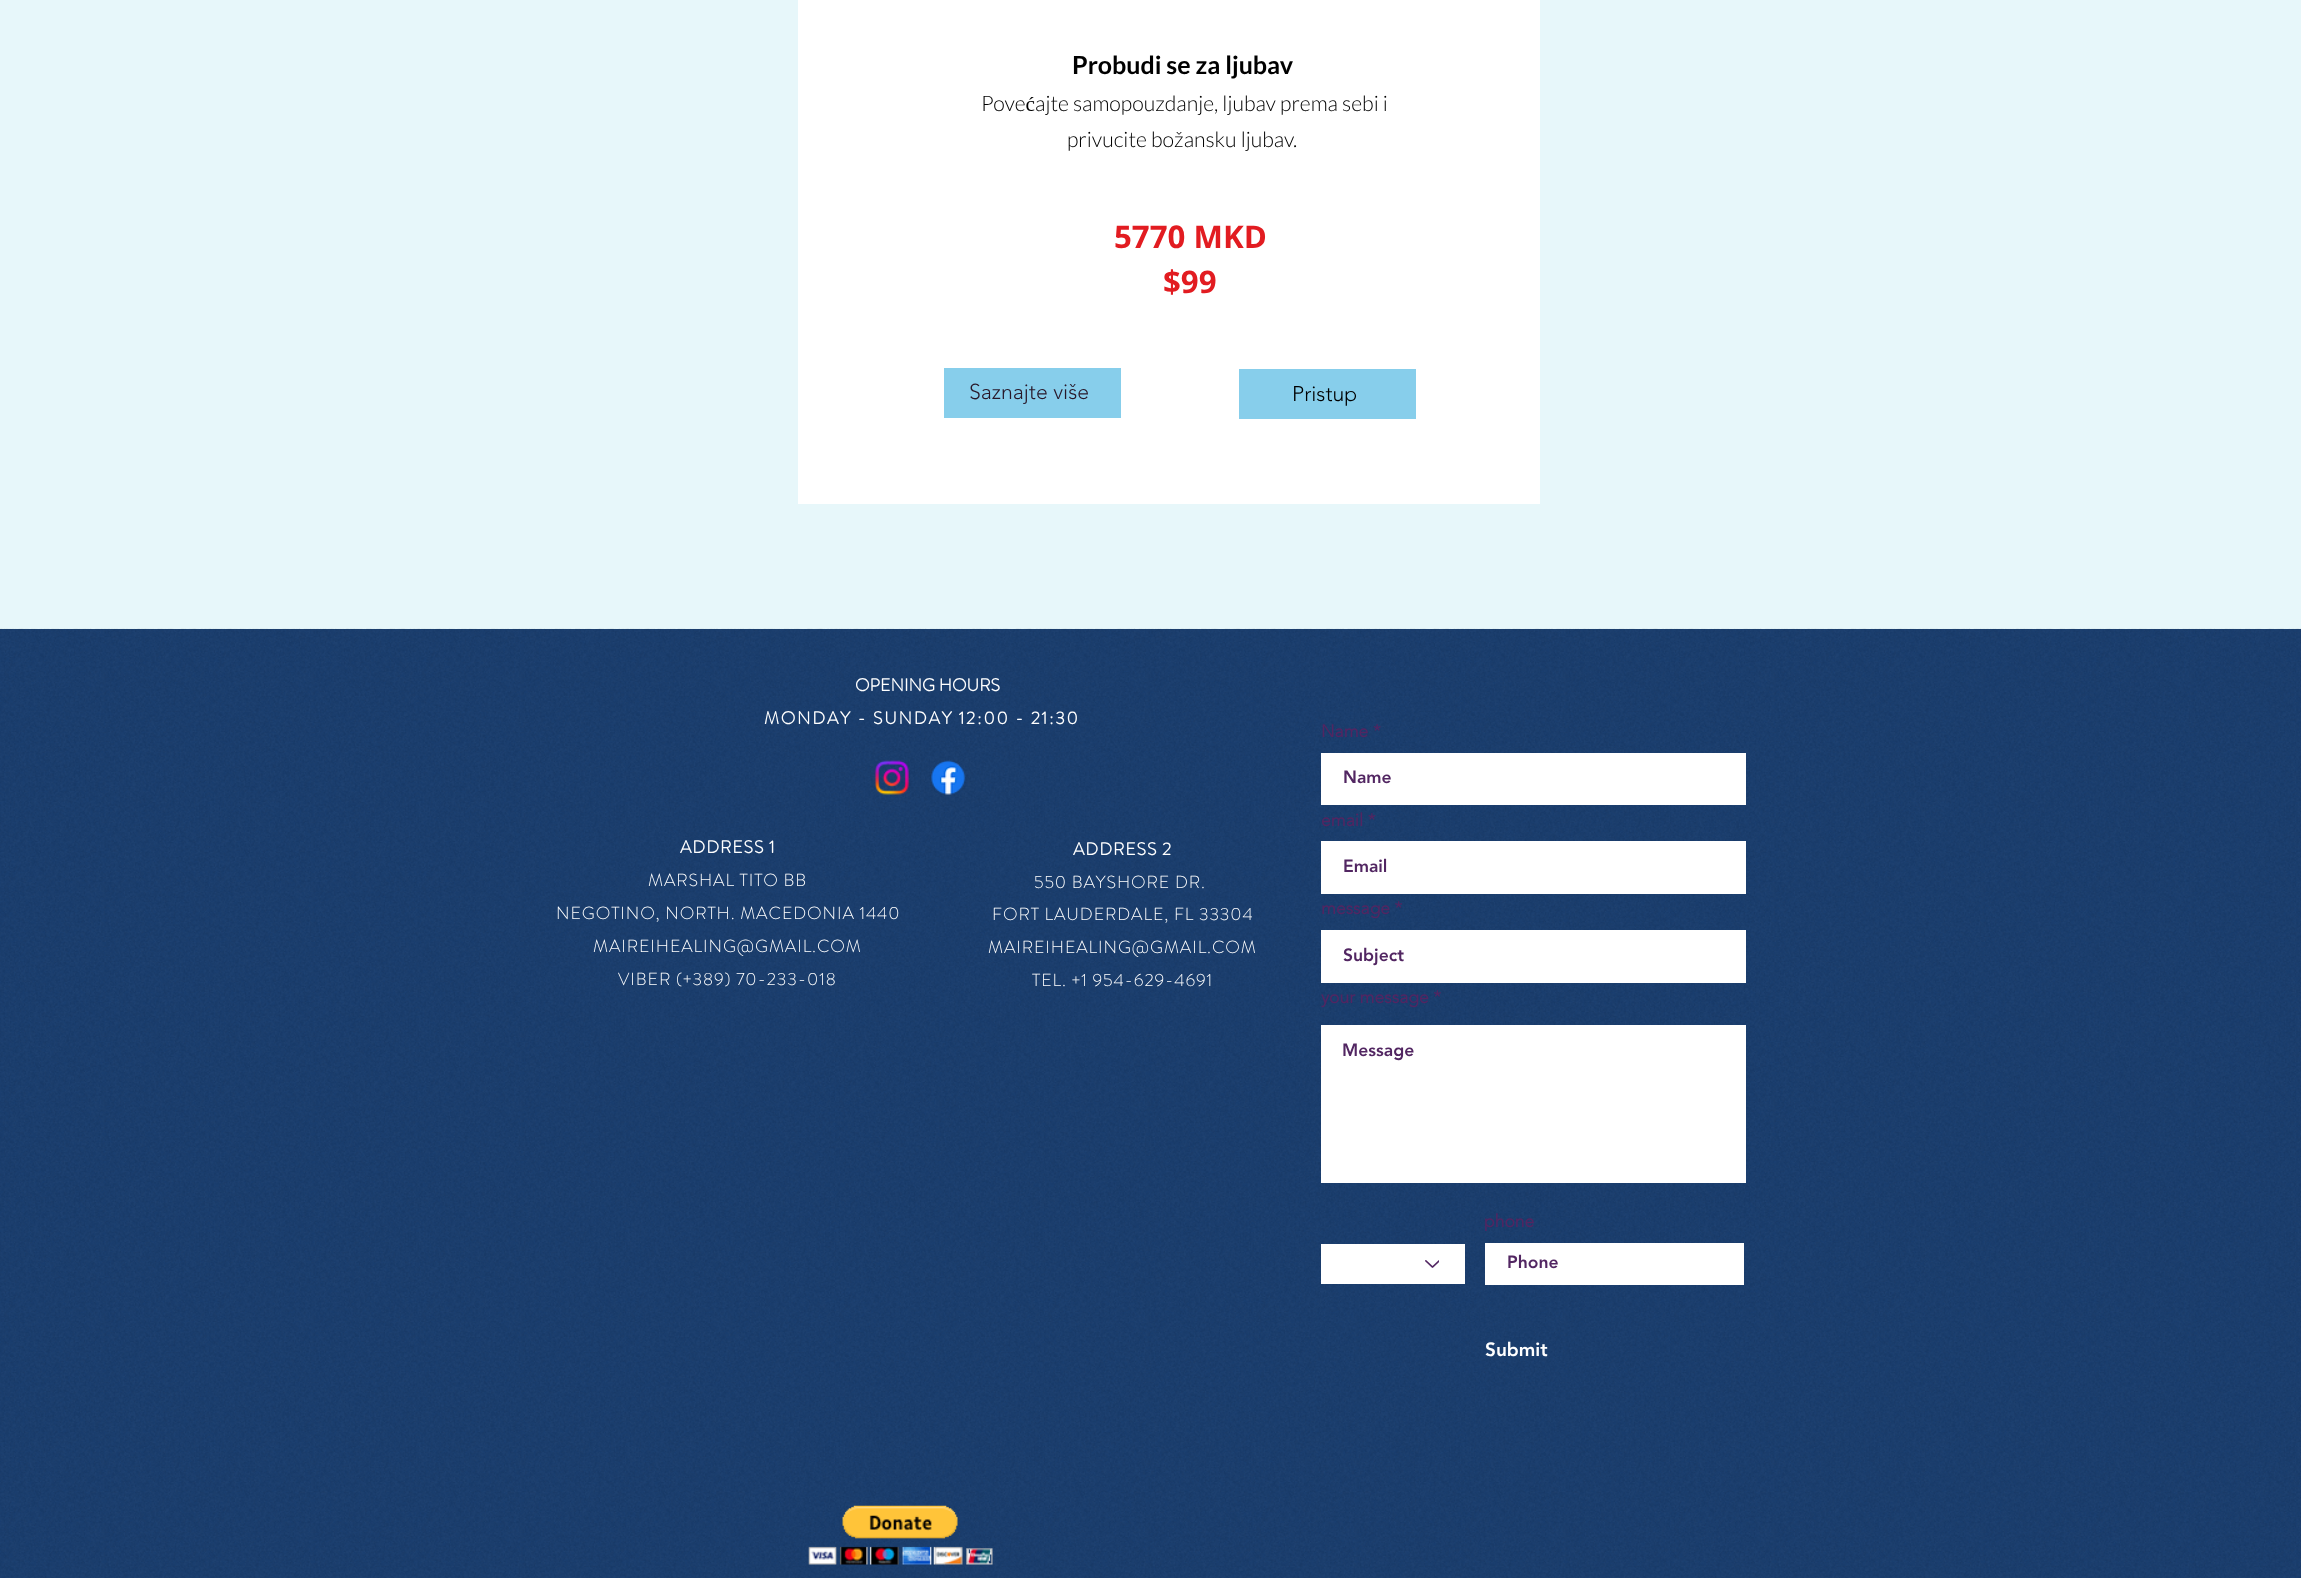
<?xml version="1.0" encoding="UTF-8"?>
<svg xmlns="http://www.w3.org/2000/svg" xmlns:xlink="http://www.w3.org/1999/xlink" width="2301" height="1578">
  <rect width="100%" height="100%" fill="#e7f7fa" />
  <rect x="798" width="742" height="504" fill="#ffffff" />
  <rect x="944" y="368" width="177" height="50" fill="#87ceeb" />
  <rect x="1239" y="369" width="177" height="50" fill="#87ceeb" />
  <rect y="629" width="2301" height="949" fill="#1a3e6f" />
  <image x="0" y="628" width="2301" height="950" xlink:href="image1.png" />
  <image x="874" y="760" width="35" height="35" xlink:href="image2.png" />
  <image x="931" y="760" width="35" height="35" xlink:href="image3.png" />
  <rect x="1321" y="753" width="425" height="52" fill="#ffffff" />
  <rect x="1321" y="841" width="425" height="53" fill="#ffffff" />
  <rect x="1321" y="930" width="425" height="53" fill="#ffffff" />
  <rect x="1321" y="1025" width="425" height="158" fill="#ffffff" />
  <rect x="1321" y="1244" width="144" height="40" fill="#ffffff" />
  <image x="1425" y="1260" width="14" height="8" xlink:href="image4.png" />
  <rect x="1485" y="1243" width="259" height="42" fill="#ffffff" />
  <image x="808" y="1505" width="185" height="60" xlink:href="image5.png" />
  <text x="1072" y="74" style="font-family: Lato; font-size: 25px; font-weight: bold; fill: #000000">Probudi se za ljubav</text>
  <text x="981" y="111" style="font-family: Lato; font-size: 21.25px; font-weight: 300; fill: #000000">Povećajte samopouzdanje, ljubav prema sebi i</text>
  <text x="1067" y="147" style="font-family: Lato; font-size: 21.25px; font-weight: 300; fill: #000000">privucite božansku ljubav.</text>
  <text x="1114" y="248" style="font-family: Open Sans; font-size: 31.25px; font-weight: bold; fill: #e21c21">5770 MKD</text>
  <text x="1163" y="293" style="font-family: Open Sans; font-size: 31.25px; font-weight: bold; fill: #e21c21">$99</text>
  <text x="969" y="399" style="font-family: 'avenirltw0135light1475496'; font-size: 21.25px; font-weight: 300; fill: #281728">Saznajte više</text>
  <text x="1292" y="401" style="font-family: 'avenirltw0135light1475496'; font-size: 21.25px; font-weight: 300; fill: #000000">Pristup</text>
  <text x="855" y="691" style="font-family: 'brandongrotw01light'; font-size: 17.5px; font-weight: bold; fill: #ffffff">OPENING HOURS</text>
  <text x="764" y="724" style="font-family: 'brandongrotw01light'; font-size: 17.5px; font-weight: bold; letter-spacing: 1.75px; fill: #ffffff">MONDAY - SUNDAY 12:00 - 21:30</text>
  <text x="1321" y="737" style="font-family: 'avenirltw0135light1475496'; font-size: 17.5px; font-weight: bold; fill: #522662">Name *</text>
  <text x="1343" y="783" style="font-family: 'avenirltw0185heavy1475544'; font-size: 17.5px; font-weight: 900; fill: #522662">Name</text>
  <text x="1321" y="826" style="font-family: 'avenirltw0135light1475496'; font-size: 17.5px; font-weight: bold; fill: #522662">email *</text>
  <text x="1343" y="872" style="font-family: 'avenirltw0185heavy1475544'; font-size: 17.5px; font-weight: 900; fill: #522662">Email</text>
  <text x="1321" y="914" style="font-family: 'avenirltw0135light1475496'; font-size: 17.5px; font-weight: bold; fill: #522662">message *</text>
  <text x="1343" y="961" style="font-family: 'avenirltw0185heavy1475544'; font-size: 17.5px; font-weight: 900; fill: #522662">Subject</text>
  <text x="1321" y="1003" style="font-family: 'avenirltw0135light1475496'; font-size: 17.5px; font-weight: bold; fill: #522662">your message *</text>
  <text x="1342" y="1056" style="font-family: 'avenirltw0185heavy1475544'; font-size: 17.5px; font-weight: 900; fill: #522662">Message</text>
  <text x="1484" y="1227" style="font-family: 'avenirltw0135light1475496'; font-size: 17.5px; font-weight: bold; fill: #522662">phone</text>
  <text x="1507" y="1268" style="font-family: 'avenirltw0185heavy1475544'; font-size: 17.5px; font-weight: 900; fill: #522662">Phone</text>
  <text x="1485" y="1356" style="font-family: 'avenirltw0185heavy1475544'; font-size: 19px; font-weight: 900; fill: #ffffff">Submit</text>
  <text x="680" y="853" style="font-family: 'brandongrotw01light'; font-size: 17.5px; font-weight: bold; letter-spacing: 0.9px; fill: #ffffff">ADDRESS 1</text>
  <text x="648" y="886" style="font-family: 'brandongrotw01light'; font-size: 17.5px; font-weight: 300; letter-spacing: 0.9px; fill: #ffffff">MARSHAL TITO BB</text>
  <text x="556" y="919" style="font-family: 'brandongrotw01light'; font-size: 17.5px; font-weight: 300; letter-spacing: 0.9px; fill: #ffffff">NEGOTINO, NORTH. MACEDONIA 1440</text>
  <text x="593" y="952" style="font-family: 'brandongrotw01light'; font-size: 17.5px; font-weight: 300; letter-spacing: 0.9px; fill: #ffffff">MAIREIHEALING@GMAIL.COM</text>
  <text x="618" y="985" style="font-family: 'brandongrotw01light'; font-size: 17.5px; font-weight: 300; letter-spacing: 0.9px; fill: #ffffff">VIBER (+389) 70-233-018</text>
  <text x="1073" y="855" style="font-family: 'brandongrotw01light'; font-size: 17.5px; font-weight: bold; letter-spacing: 0.9px; fill: #ffffff">ADDRESS 2</text>
  <text x="1034" y="888" style="font-family: 'brandongrotw01light'; font-size: 17.5px; font-weight: 300; letter-spacing: 0.9px; fill: #ffffff">550 BAYSHORE DR.</text>
  <text x="992" y="920" style="font-family: 'brandongrotw01light'; font-size: 17.5px; font-weight: 300; letter-spacing: 0.9px; fill: #ffffff">FORT LAUDERDALE, FL 33304</text>
  <text x="988" y="953" style="font-family: 'brandongrotw01light'; font-size: 17.5px; font-weight: 300; letter-spacing: 0.9px; fill: #ffffff">MAIREIHEALING@GMAIL.COM</text>
  <text x="1032" y="986" style="font-family: 'brandongrotw01light'; font-size: 17.5px; font-weight: 300; letter-spacing: 0.9px; fill: #ffffff">TEL. +1 954-629-4691</text>
</svg>
